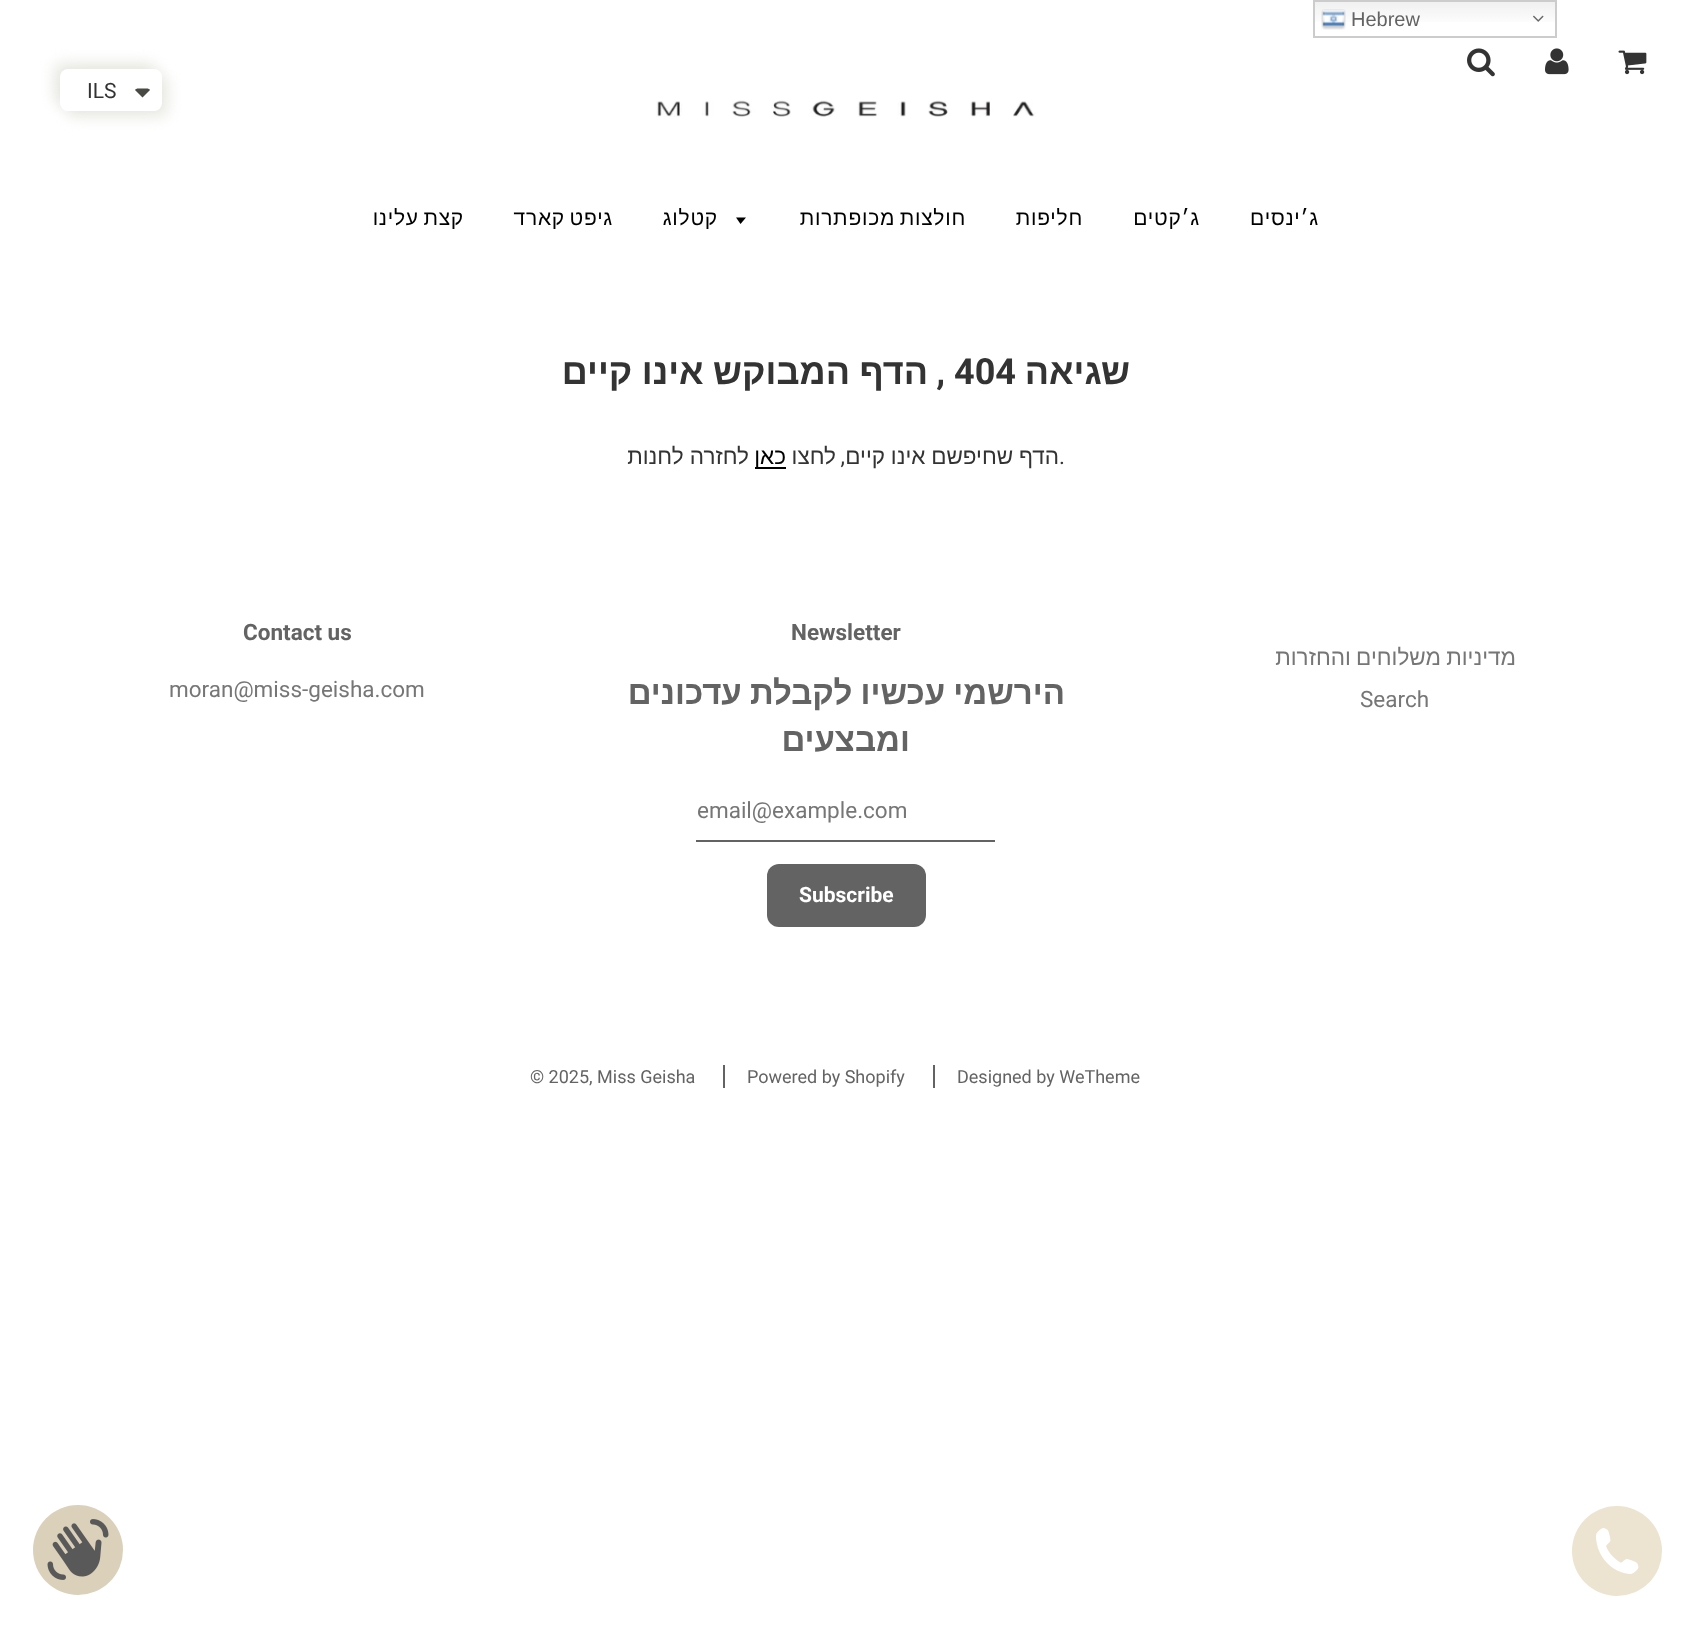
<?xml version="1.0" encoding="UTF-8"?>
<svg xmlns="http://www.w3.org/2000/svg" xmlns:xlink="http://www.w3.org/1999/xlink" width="1691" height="1626">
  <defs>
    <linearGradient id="g1" gradientUnits="userSpaceOnUse" x1="1435" y1="0" x2="1435" y2="38"><stop offset="0" stop-color="#efefef" /><stop offset="0.7" stop-color="#ffffff" /></linearGradient>
  </defs>
  <rect width="100%" height="100%" fill="#ffffff" />
  <rect x="1315" y="2" width="240" height="20" fill="url(#g1)" />
  <rect x="1314" y="1" width="242" height="36" fill="none" stroke="#cccccc" stroke-width="2" />
  <image x="1533" y="15" width="11" height="7" xlink:href="image1.png" />
  <image x="1321" y="9" width="25" height="21" xlink:href="image2.png" />
  <rect x="54" y="63" width="102" height="42" rx="8" fill="#e8e8e2" filter="blur(7px)" />
  <rect x="66" y="75" width="102" height="42" rx="8" fill="#e8e8e2" filter="blur(7px)" />
  <rect x="60" y="69" width="102" height="42" rx="8" fill="#ffffff" />
  <path d="M 138 88.5 c -1 0 -2.5 0.5 -3 1.5 l 7.5 7.5 l 7.5 -7.5 c -0.5 -1 -2 -1.5 -3 -1.5 z" fill="#474942" />
  <image x="1618" y="50" width="29" height="25" xlink:href="image3.png" />
  <image x="1545" y="48" width="24" height="27" xlink:href="image4.png" />
  <image x="1467" y="48" width="28" height="29" xlink:href="image5.png" />
  <image x="656" y="100" width="380" height="17" xlink:href="image6.png" />
  <path d="M 736 217.5 l 4.5 6.5 l 5.5 -6.5 z" fill="#000000" />
  <rect x="755" y="467" width="31" height="2" fill="#000000" />
  <rect x="696" y="840" width="299" height="2" fill="#636363" />
  <rect x="767" y="864" width="159" height="63" rx="12" fill="#636363" />
  <rect x="933" y="1065" width="2" height="23" fill="#636363" />
  <rect x="723" y="1065" width="2" height="23" fill="#636363" />
  <circle cx="1617" cy="1551" r="45" fill="#ece3d0" />
  <image x="1596" y="1528" width="43" height="46" xlink:href="image7.png" />
  <circle cx="78" cy="1550" r="45" fill="#dbd0ba" />
  <image x="47" y="1519" width="62" height="61" xlink:href="image8.png" />
  <text x="1351" y="26" style="font-family: Liberation Sans; font-size: 20px; fill: #636363">Hebrew</text>
  <text x="87" y="98" style="font-family: Roboto; font-size: 21px; fill: #333333">ILS</text>
  <text x="1319" y="225" style="font-family: Liberation Sans; font-size: 21px; letter-spacing: 0.75px; direction: rtl; fill: #000000">ג׳ינסים</text>
  <text x="1200" y="225" style="font-family: Liberation Sans; font-size: 21px; letter-spacing: 0.75px; direction: rtl; fill: #000000">ג׳קטים</text>
  <text x="1083" y="225" style="font-family: Liberation Sans; font-size: 21px; letter-spacing: 0.75px; direction: rtl; fill: #000000">חליפות</text>
  <text x="966" y="225" word-spacing="-2" style="font-family: Liberation Sans; font-size: 21px; letter-spacing: 0.75px; direction: rtl; fill: #000000">חולצות מכופתרות</text>
  <text x="718" y="225" style="font-family: Liberation Sans; font-size: 21px; letter-spacing: 0.75px; direction: rtl; fill: #000000">קטלוג</text>
  <text x="613" y="225" word-spacing="-2" style="font-family: Liberation Sans; font-size: 21px; letter-spacing: 0.75px; direction: rtl; fill: #000000">גיפט קארד</text>
  <text x="464" y="225" word-spacing="-2" style="font-family: Liberation Sans; font-size: 21px; letter-spacing: 0.75px; direction: rtl; fill: #000000">קצת עלינו</text>
  <text x="1130" y="384" style="font-family: Liberation Sans; font-size: 36px; font-weight: bold; direction: rtl; fill: #333333">שגיאה</text>
  <text x="954" y="384" style="font-family: Roboto; font-size: 36px; font-weight: bold; fill: #333333">404</text>
  <text x="945" y="384" style="font-family: Roboto; font-size: 36px; font-weight: bold; direction: rtl; fill: #333333">,</text>
  <text x="928" y="384" word-spacing="-0.5" style="font-family: Liberation Sans; font-size: 36px; font-weight: bold; direction: rtl; fill: #333333">הדף המבוקש אינו קיים</text>
  <text x="1059" y="464" style="font-family: Roboto; font-size: 22.5px; fill: #333333">.</text>
  <text x="1059" y="464" word-spacing="-0.5" style="font-family: Liberation Sans; font-size: 22.5px; direction: rtl; fill: #333333">הדף שחיפשם אינו קיים</text>
  <text x="845" y="464" style="font-family: Roboto; font-size: 22.5px; direction: rtl; fill: #333333">,</text>
  <text x="836" y="464" style="font-family: Liberation Sans; font-size: 22.5px; direction: rtl; fill: #333333">לחצו</text>
  <text x="786" y="464" style="font-family: Liberation Sans; font-size: 22.5px; direction: rtl; fill: #000000">כאן</text>
  <text x="749" y="464" style="font-family: Liberation Sans; font-size: 22.5px; direction: rtl; fill: #333333">לחזרה לחנות</text>
  <text x="1516" y="665" word-spacing="-1" style="font-family: Liberation Sans; font-size: 22.5px; direction: rtl; fill: #767676">מדיניות משלוחים והחזרות</text>
  <text x="1360" y="707" style="font-family: Roboto; font-size: 22.5px; fill: #767676">Search</text>
  <text x="791" y="640" style="font-family: Roboto; font-size: 22.5px; font-weight: bold; fill: #636363">Newsletter</text>
  <text x="1065" y="704" word-spacing="-1" style="font-family: Liberation Sans; font-size: 33px; font-weight: bold; direction: rtl; fill: #636363">הירשמי עכשיו לקבלת עדכונים</text>
  <text x="910" y="751" style="font-family: Liberation Sans; font-size: 33px; font-weight: bold; direction: rtl; fill: #636363">ומבצעים</text>
  <text x="697" y="818" style="font-family: Roboto; font-size: 22.5px; fill: #767676">email@example.com</text>
  <text x="799" y="902" style="font-family: Roboto; font-size: 21px; font-weight: bold; fill: #ffffff">Subscribe</text>
  <text x="243" y="640" style="font-family: Roboto; font-size: 22.5px; font-weight: bold; fill: #636363">Contact us</text>
  <text x="169" y="697" style="font-family: Roboto; font-size: 22.5px; fill: #767676">moran@miss-geisha.com</text>
  <text x="957" y="1083" style="font-family: Roboto; font-size: 18px; fill: #636363">Designed by WeTheme</text>
  <text x="747" y="1083" style="font-family: Roboto; font-size: 18px; fill: #636363">Powered by Shopify</text>
  <text x="530" y="1083" style="font-family: Roboto; font-size: 18px; fill: #636363">© 2025, Miss Geisha</text>
</svg>
